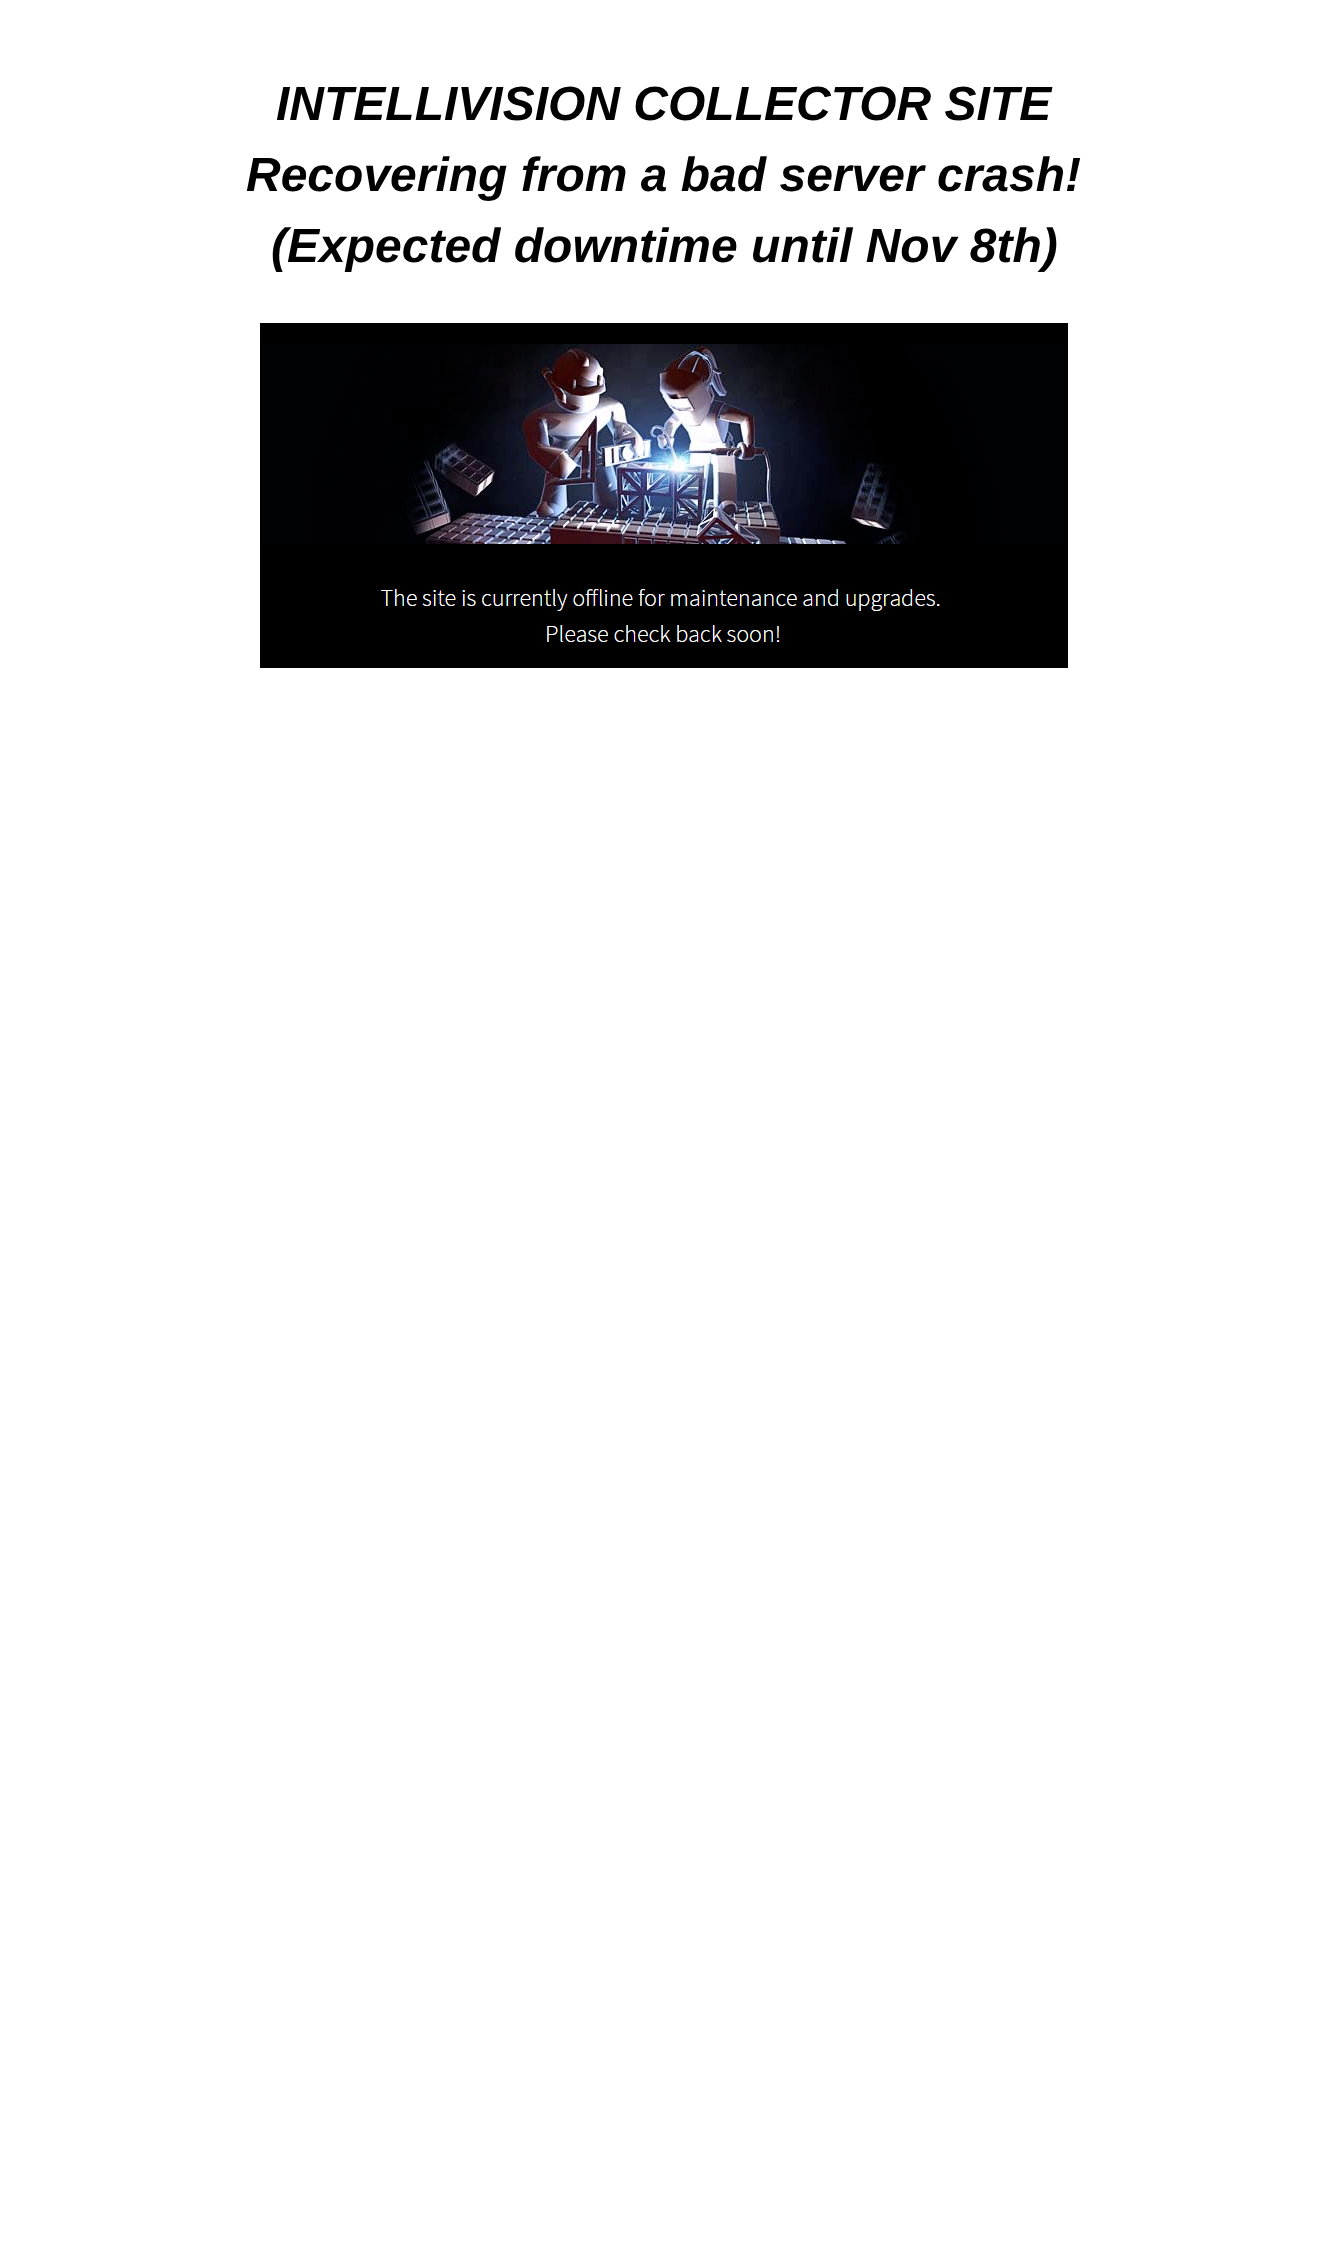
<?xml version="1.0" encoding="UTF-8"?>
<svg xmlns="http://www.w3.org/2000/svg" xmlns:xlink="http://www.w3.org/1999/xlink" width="1328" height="2252">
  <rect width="100%" height="100%" fill="#ffffff" />
  <image x="260" y="323" width="808" height="345" xlink:href="image1.png" />
  <text x="276" y="120" style="font-family: Liberation Sans; font-size: 48px; font-weight: bold; font-style: italic; fill: #000000">INTELLIVISION COLLECTOR SITE</text>
  <text x="246" y="191" style="font-family: Liberation Sans; font-size: 48px; font-weight: bold; font-style: italic; fill: #000000">Recovering from a bad server crash!</text>
  <text x="271" y="262" style="font-family: Liberation Sans; font-size: 48px; font-weight: bold; font-style: italic; fill: #000000">(Expected downtime until Nov 8th)</text>
</svg>
